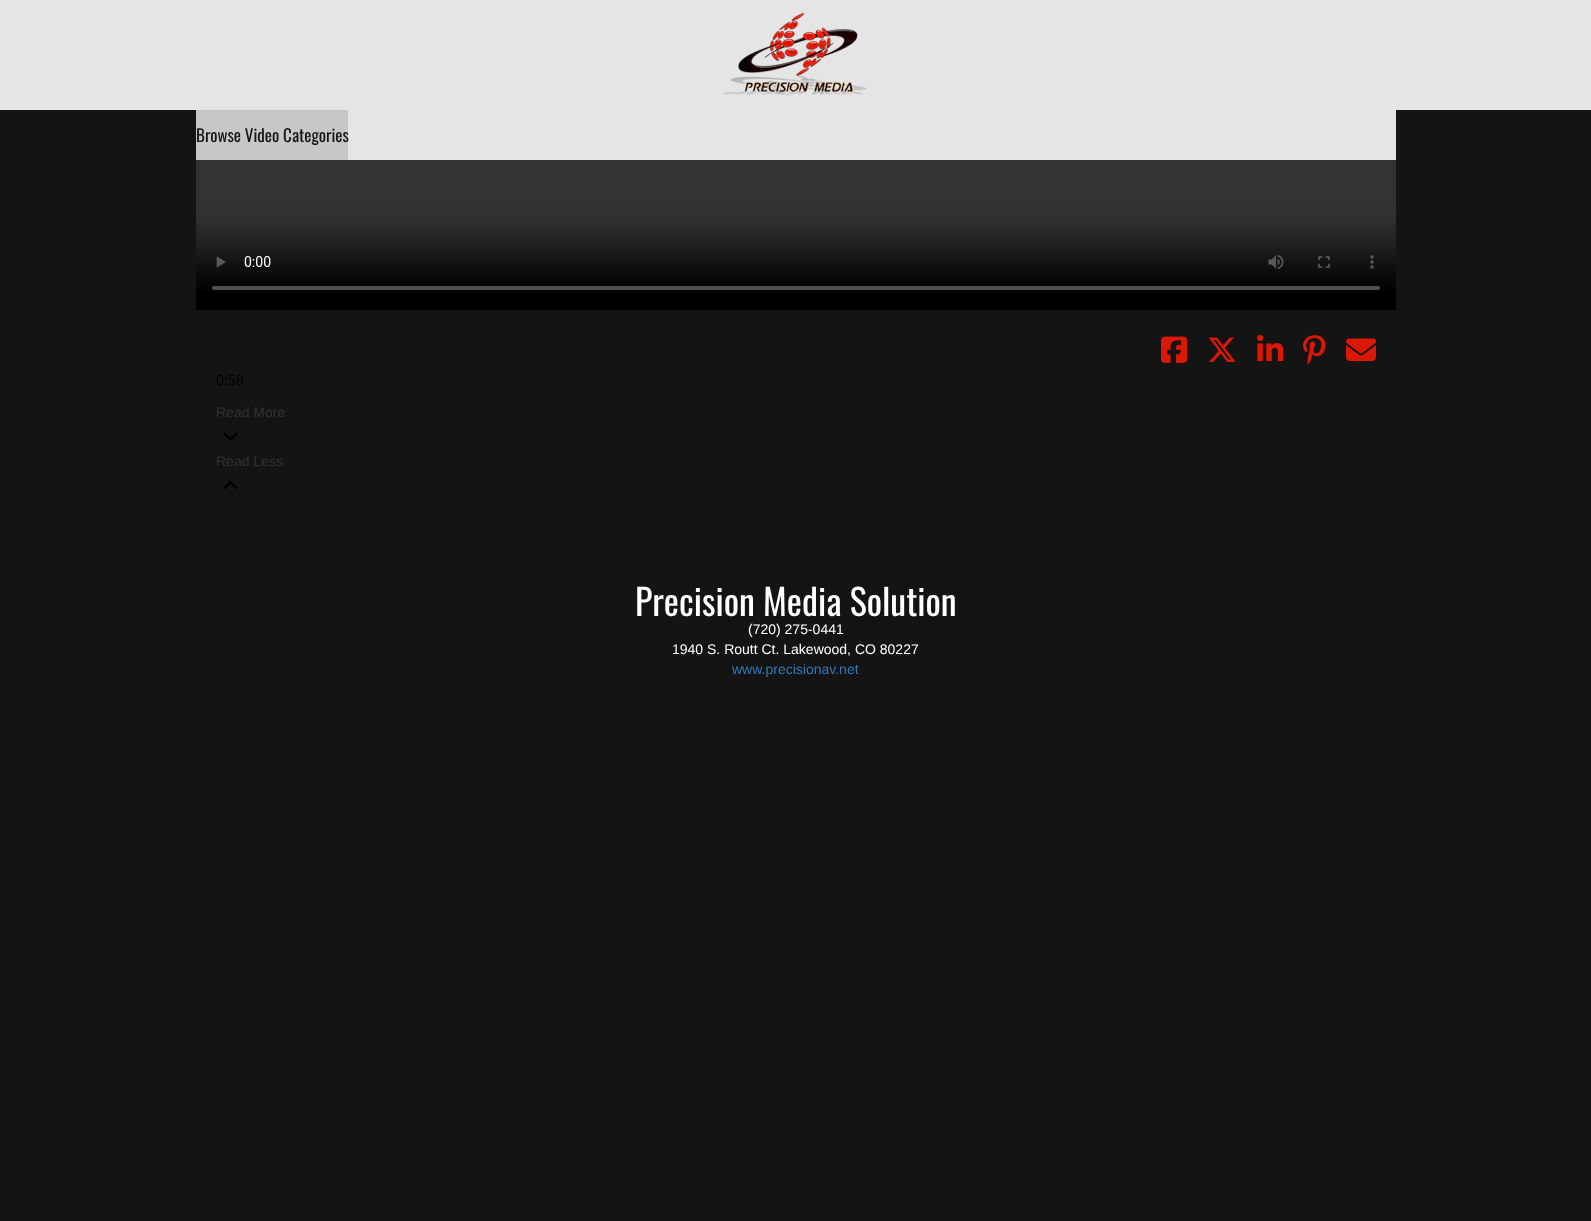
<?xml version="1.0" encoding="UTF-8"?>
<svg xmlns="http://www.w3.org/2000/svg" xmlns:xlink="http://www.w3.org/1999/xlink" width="1591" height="1221">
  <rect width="100%" height="100%" fill="#141414" />
  <rect width="1591" height="110" fill="#e5e5e5" />
  <image x="724" y="13" width="143" height="83" xlink:href="image1.png" />
  <rect x="348" y="110" width="1048" height="50" fill="#e5e5e5" />
  <rect x="196" y="110" width="152" height="50" fill="#c7c7c7" />
  <rect x="196" y="290" width="1200" height="20" fill="#000000" />
  <image x="196" y="160" width="1200" height="130" xlink:href="image2.png" />
  <image x="1161" y="336" width="27" height="27" xlink:href="image3.png" />
  <image x="1208" y="337" width="28" height="25" xlink:href="image4.png" />
  <image x="1257" y="334" width="27" height="27" xlink:href="image5.png" />
  <image x="1303" y="335" width="23" height="30" xlink:href="image6.png" />
  <image x="1346" y="338" width="30" height="23" xlink:href="image7.png" />
  <image x="223" y="432" width="14" height="9" xlink:href="image8.png" />
  <image x="223" y="481" width="15" height="8" xlink:href="image9.png" />
  <text x="196" y="142" style="font-family: Oswald; font-size: 17px; fill: #141414">Browse Video Categories</text>
  <text x="216" y="385" style="font-family: Open Sans; font-size: 14px; fill: #020202">0:58</text>
  <text x="216" y="417" style="font-family: Liberation Sans; font-size: 14px; fill: #333333">Read More</text>
  <text x="216" y="466" style="font-family: Liberation Sans; font-size: 14px; fill: #333333">Read Less</text>
  <text x="635" y="616" style="font-family: Oswald; font-size: 36px; fill: #ffffff">Precision Media Solution</text>
  <text x="748" y="634" style="font-family: Liberation Sans; font-size: 14px; fill: #ffffff">(720) 275-0441</text>
  <text x="672" y="654" style="font-family: Liberation Sans; font-size: 14px; fill: #ffffff">1940 S. Routt Ct. Lakewood, CO 80227</text>
  <text x="732" y="674" style="font-family: Liberation Sans; font-size: 14px; fill: #337ab7">www.precisionav.net</text>
</svg>
